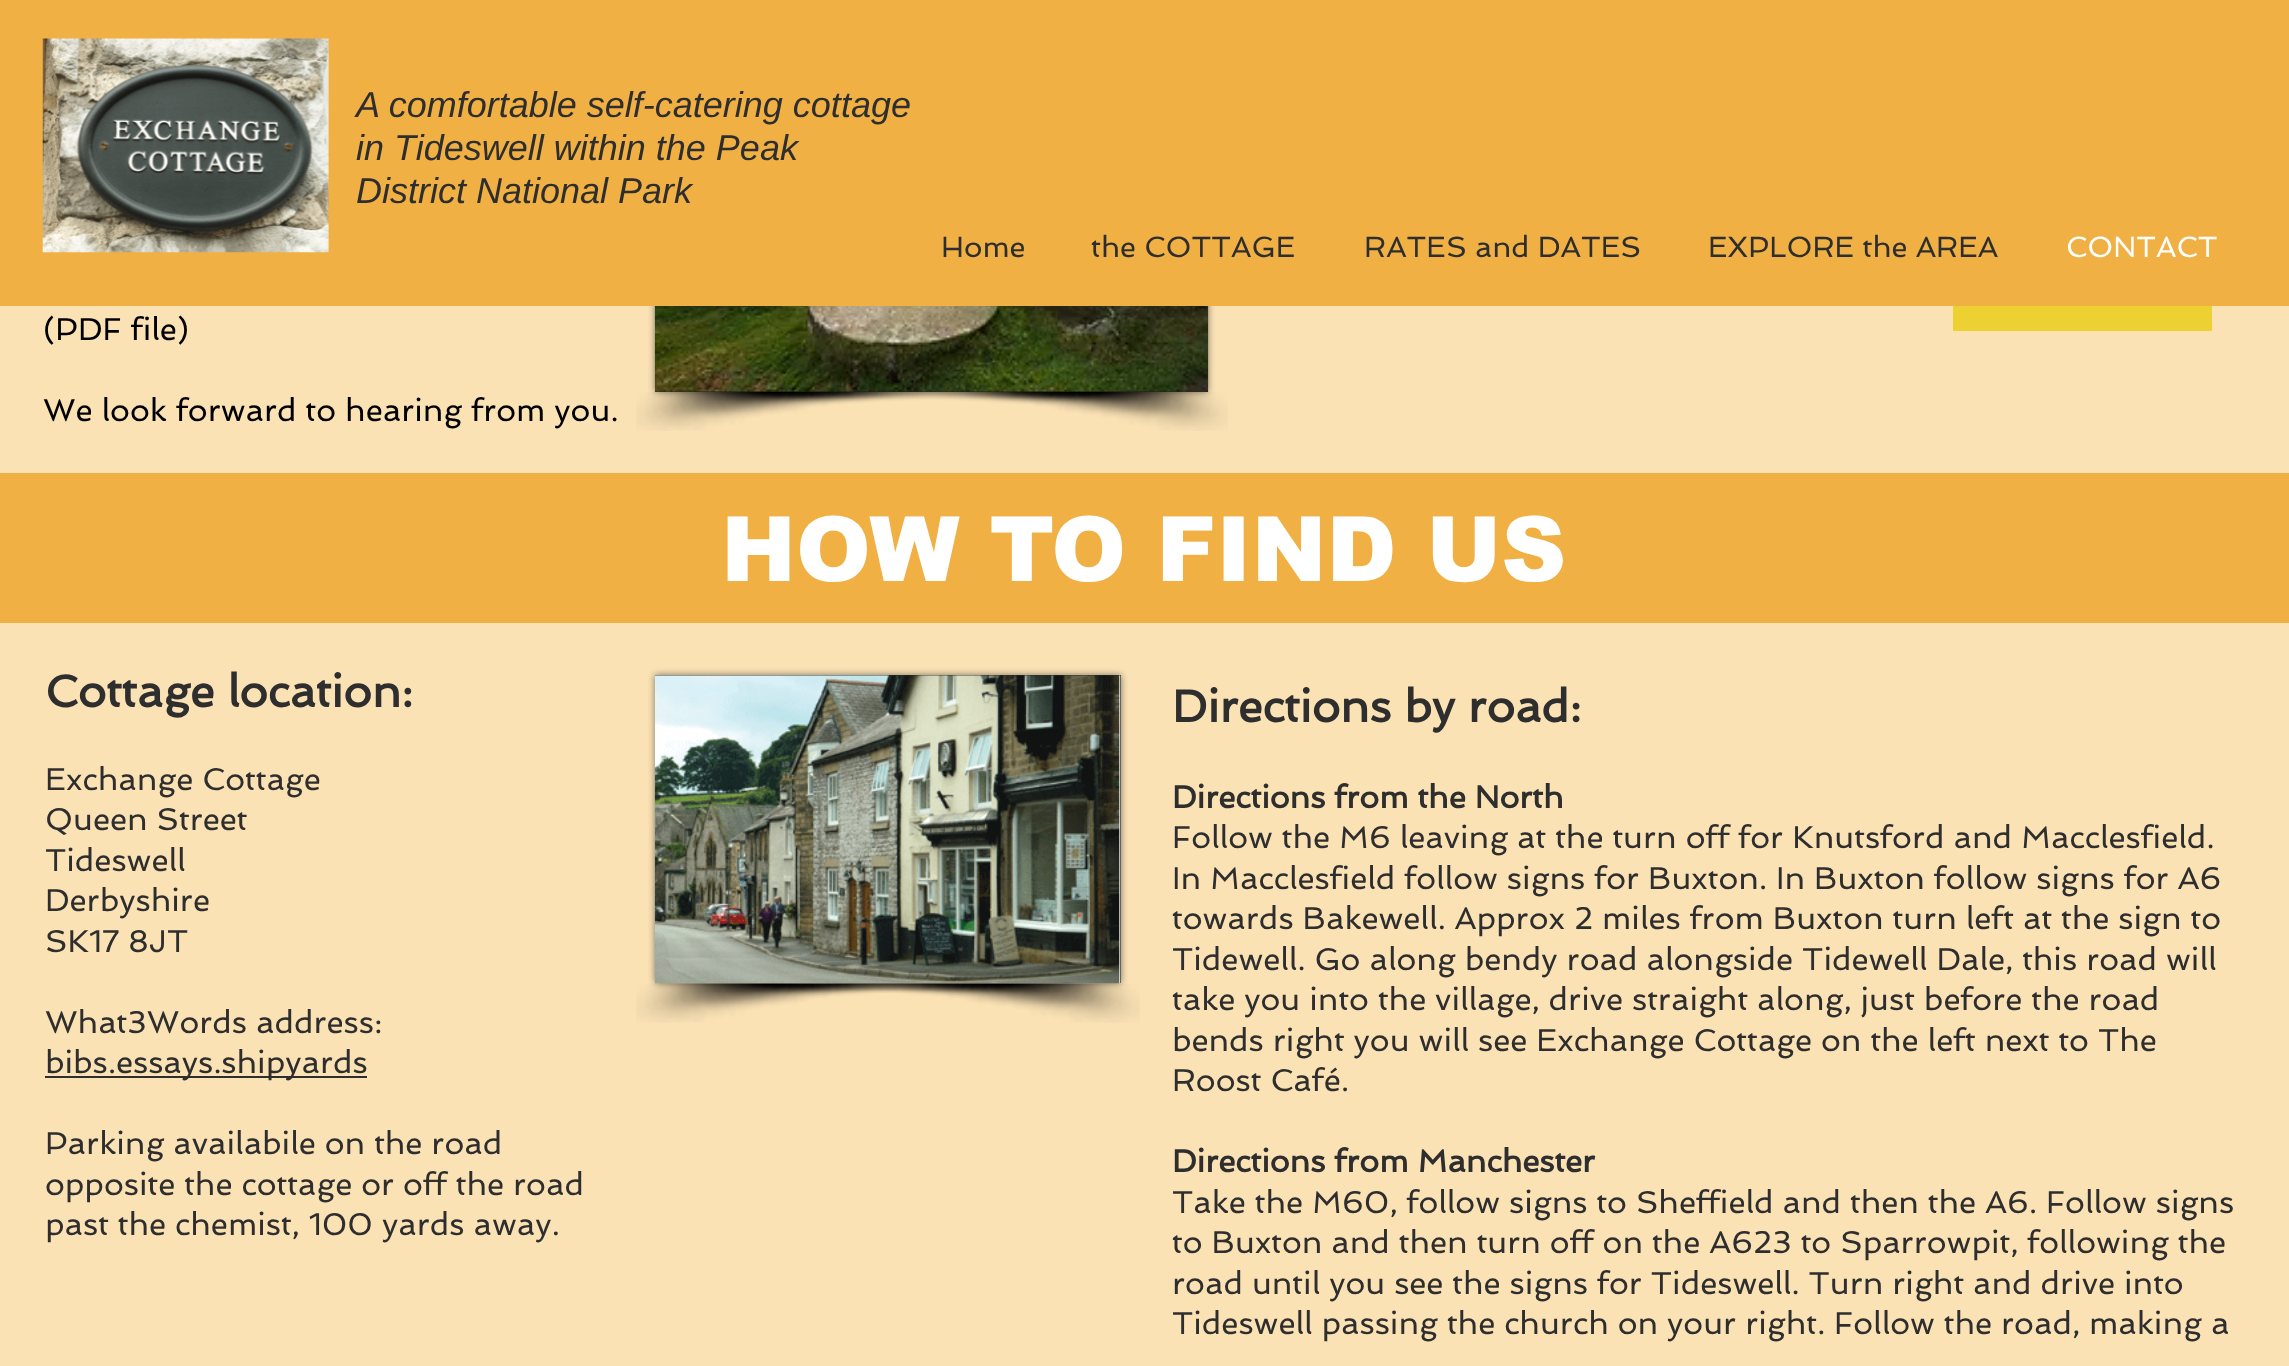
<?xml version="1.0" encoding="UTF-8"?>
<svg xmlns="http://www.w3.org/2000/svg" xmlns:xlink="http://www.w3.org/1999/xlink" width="2289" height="1366">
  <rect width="100%" height="100%" fill="#fae2b5" />
  <rect x="655" y="23" width="553" height="369" fill="#000000" fill-opacity="0.5" filter="blur(3.5px)" />
  <rect width="2289" height="306" fill="#f0b044" />
  <image x="42" y="38" width="287" height="215" xlink:href="image1.png" />
  <rect x="655" y="391" width="553" height="1" fill="#2f2e2e" />
  <image x="654" y="306" width="555" height="86" xlink:href="image2.png" />
  <image x="636" y="391" width="345" height="40" xlink:href="image3.png" />
  <image x="899" y="391" width="329" height="40" xlink:href="image4.png" />
  <rect x="1953" y="306" width="259" height="25" fill="#edd132" />
  <rect y="473" width="2289" height="150" fill="#f0b044" />
  <rect x="45" y="1076" width="322" height="2" fill="#2f2e2e" />
  <rect x="655" y="675" width="466" height="308" fill="#000000" fill-opacity="0.5" filter="blur(3.5px)" />
  <rect x="655" y="675" width="466" height="308" fill="#2f2e2e" />
  <image x="654" y="675" width="467" height="309" xlink:href="image5.png" />
  <image x="636" y="983" width="345" height="40" xlink:href="image6.png" />
  <image x="835" y="983" width="305" height="40" xlink:href="image7.png" />
  <text x="356" y="117" style="font-family: Liberation Sans; font-size: 36px; font-style: italic; fill: #2f2e2e">A comfortable self-catering cottage</text>
  <text x="356" y="160" style="font-family: Liberation Sans; font-size: 36px; font-style: italic; fill: #2f2e2e">in Tideswell within the Peak</text>
  <text x="356" y="203" style="font-family: Liberation Sans; font-size: 36px; font-style: italic; fill: #2f2e2e">District National Park</text>
  <text x="941" y="257" style="font-family: Spinnaker; font-size: 29.25px; fill: #2f2e2e">Home</text>
  <text x="1091" y="257" style="font-family: Spinnaker; font-size: 29.25px; fill: #2f2e2e">the COTTAGE</text>
  <text x="1364" y="257" style="font-family: Spinnaker; font-size: 29.25px; fill: #2f2e2e">RATES and DATES</text>
  <text x="1708" y="257" style="font-family: Spinnaker; font-size: 29.25px; fill: #2f2e2e">EXPLORE the AREA</text>
  <text x="2066" y="257" style="font-family: Spinnaker; font-size: 29.25px; fill: #ffffff">CONTACT</text>
  <text x="43" y="340" style="font-family: Spinnaker; font-size: 31.5px; fill: #000000">(PDF file)</text>
  <text x="43" y="421" style="font-family: Spinnaker; font-size: 31.5px; fill: #000000">We look forward to hearing from you.</text>
  <text x="721" y="581" style="font-family: arial; font-size: 90px; font-weight: 900; fill: #ffffff">HOW TO FIND US</text>
  <text x="45" y="707" style="font-family: Spinnaker; font-size: 45px; font-weight: bold; fill: #2f2e2e">Cottage location:</text>
  <text x="45" y="790" style="font-family: Spinnaker; font-size: 31.5px; fill: #2f2e2e">Exchange Cottage</text>
  <text x="45" y="830" style="font-family: Spinnaker; font-size: 31.5px; fill: #2f2e2e">Queen Street</text>
  <text x="45" y="871" style="font-family: Spinnaker; font-size: 31.5px; fill: #2f2e2e">Tideswell</text>
  <text x="45" y="911" style="font-family: Spinnaker; font-size: 31.5px; fill: #2f2e2e">Derbyshire</text>
  <text x="45" y="952" style="font-family: Spinnaker; font-size: 31.5px; fill: #2f2e2e">SK17 8JT</text>
  <text x="45" y="1033" style="font-family: Spinnaker; font-size: 31.5px; fill: #2f2e2e">What3Words address:</text>
  <text x="45" y="1073" style="font-family: Spinnaker; font-size: 31.5px; fill: #2f2e2e">bibs.essays.shipyards</text>
  <text x="45" y="1154" style="font-family: Spinnaker; font-size: 31.5px; fill: #2f2e2e">Parking availabile on the road</text>
  <text x="45" y="1195" style="font-family: Spinnaker; font-size: 31.5px; fill: #2f2e2e">opposite the cottage or off the road</text>
  <text x="45" y="1235" style="font-family: Spinnaker; font-size: 31.5px; fill: #2f2e2e">past the chemist, 100 yards away.</text>
  <text x="1172" y="722" style="font-family: Spinnaker; font-size: 45px; font-weight: bold; fill: #2f2e2e">Directions by road:</text>
  <text x="1172" y="808" style="font-family: Spinnaker; font-size: 31.5px; font-weight: bold; fill: #2f2e2e">Directions from the North</text>
  <text x="1172" y="848" style="font-family: Spinnaker; font-size: 31.5px; fill: #2f2e2e">Follow the M6 leaving at the turn off for Knutsford and Macclesfield.</text>
  <text x="1172" y="889" style="font-family: Spinnaker; font-size: 31.5px; fill: #2f2e2e">In Macclesfield follow signs for Buxton. In Buxton follow signs for A6</text>
  <text x="1172" y="929" style="font-family: Spinnaker; font-size: 31.5px; fill: #2f2e2e">towards Bakewell. Approx 2 miles from Buxton turn left at the sign to</text>
  <text x="1172" y="970" style="font-family: Spinnaker; font-size: 31.5px; fill: #2f2e2e">Tidewell. Go along bendy road alongside Tidewell Dale, this road will</text>
  <text x="1172" y="1010" style="font-family: Spinnaker; font-size: 31.5px; fill: #2f2e2e">take you into the village, drive straight along, just before the road</text>
  <text x="1172" y="1051" style="font-family: Spinnaker; font-size: 31.5px; fill: #2f2e2e">bends right you will see Exchange Cottage on the left next to The</text>
  <text x="1172" y="1091" style="font-family: Spinnaker; font-size: 31.5px; fill: #2f2e2e">Roost Café.</text>
  <text x="1172" y="1172" style="font-family: Spinnaker; font-size: 31.5px; font-weight: bold; fill: #2f2e2e">Directions from Manchester</text>
  <text x="1172" y="1213" style="font-family: Spinnaker; font-size: 31.5px; fill: #2f2e2e">Take the M60, follow signs to Sheffield and then the A6. Follow signs</text>
  <text x="1172" y="1253" style="font-family: Spinnaker; font-size: 31.5px; fill: #2f2e2e">to Buxton and then turn off on the A623 to Sparrowpit, following the</text>
  <text x="1172" y="1294" style="font-family: Spinnaker; font-size: 31.5px; fill: #2f2e2e">road until you see the signs for Tideswell. Turn right and drive into</text>
  <text x="1172" y="1334" style="font-family: Spinnaker; font-size: 31.5px; fill: #2f2e2e">Tideswell passing the church on your right. Follow the road, making a</text>
</svg>
